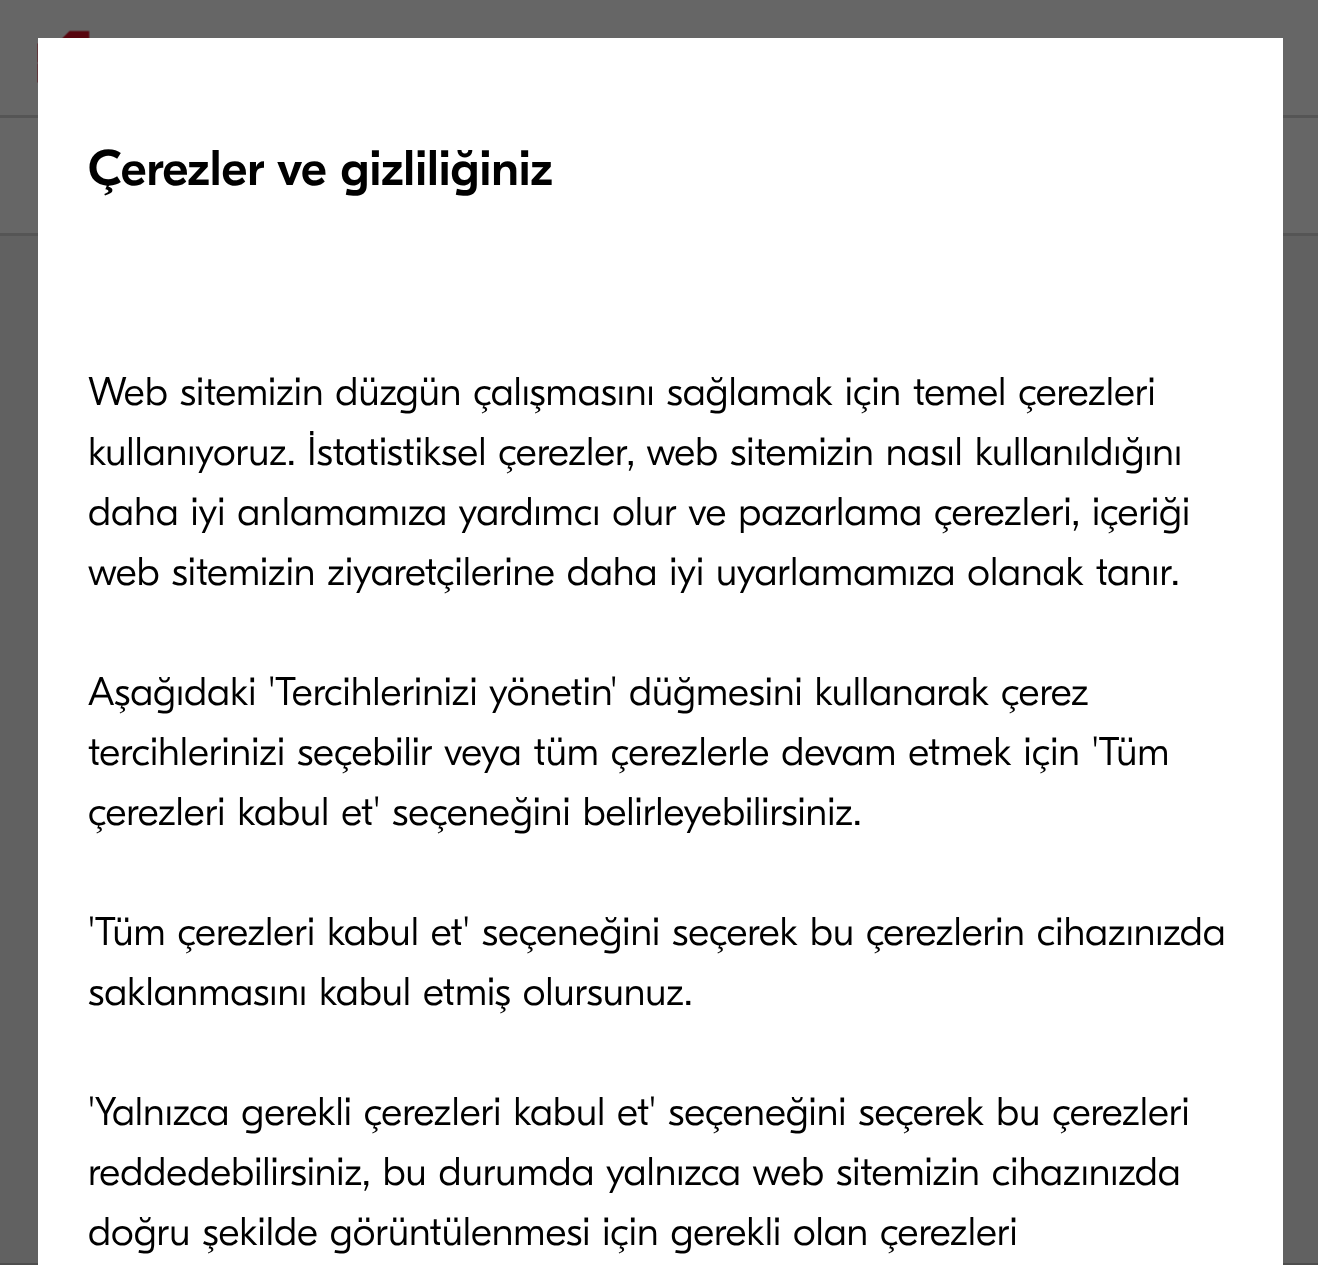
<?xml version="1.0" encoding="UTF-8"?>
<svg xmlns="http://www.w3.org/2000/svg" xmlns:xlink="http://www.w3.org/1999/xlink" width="1318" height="1265">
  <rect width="100%" height="100%" fill="#616161" />
  <rect width="1318" height="233" fill="#666666" />
  <rect y="233" width="1318" height="3" fill="#555555" />
  <rect y="115" width="1318" height="3" fill="#555555" />
  <image x="37" y="30" width="53" height="53" xlink:href="image1.png" />
  <rect y="1263" width="1318" height="2" fill="#4e4e4e" />
  <rect x="38" y="38" width="1245" height="1227" fill="#ffffff" />
  <text x="88" y="185" style="font-family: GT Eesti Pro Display; font-size: 50px; font-weight: 500; fill: #000000">Çerezler ve gizliliğiniz</text>
  <text x="88" y="405" style="font-family: GT Eesti Pro Display; font-size: 40px; font-weight: 300; fill: #000000">Web sitemizin düzgün çalışmasını sağlamak için temel çerezleri</text>
  <text x="88" y="465" style="font-family: GT Eesti Pro Display; font-size: 40px; font-weight: 300; fill: #000000">kullanıyoruz. İstatistiksel çerezler, web sitemizin nasıl kullanıldığını</text>
  <text x="88" y="525" style="font-family: GT Eesti Pro Display; font-size: 40px; font-weight: 300; fill: #000000">daha iyi anlamamıza yardımcı olur ve pazarlama çerezleri, içeriği</text>
  <text x="88" y="585" style="font-family: GT Eesti Pro Display; font-size: 40px; font-weight: 300; fill: #000000">web sitemizin ziyaretçilerine daha iyi uyarlamamıza olanak tanır.</text>
  <text x="88" y="705" style="font-family: GT Eesti Pro Display; font-size: 40px; font-weight: 300; fill: #000000">Aşağıdaki 'Tercihlerinizi yönetin' düğmesini kullanarak çerez</text>
  <text x="88" y="765" style="font-family: GT Eesti Pro Display; font-size: 40px; font-weight: 300; fill: #000000">tercihlerinizi seçebilir veya tüm çerezlerle devam etmek için 'Tüm</text>
  <text x="88" y="825" style="font-family: GT Eesti Pro Display; font-size: 40px; font-weight: 300; fill: #000000">çerezleri kabul et' seçeneğini belirleyebilirsiniz.</text>
  <text x="88" y="945" style="font-family: GT Eesti Pro Display; font-size: 40px; font-weight: 300; fill: #000000">'Tüm çerezleri kabul et' seçeneğini seçerek bu çerezlerin cihazınızda</text>
  <text x="88" y="1005" style="font-family: GT Eesti Pro Display; font-size: 40px; font-weight: 300; fill: #000000">saklanmasını kabul etmiş olursunuz.</text>
  <text x="88" y="1125" style="font-family: GT Eesti Pro Display; font-size: 40px; font-weight: 300; fill: #000000">'Yalnızca gerekli çerezleri kabul et' seçeneğini seçerek bu çerezleri</text>
  <text x="88" y="1185" style="font-family: GT Eesti Pro Display; font-size: 40px; font-weight: 300; fill: #000000">reddedebilirsiniz, bu durumda yalnızca web sitemizin cihazınızda</text>
  <text x="88" y="1245" style="font-family: GT Eesti Pro Display; font-size: 40px; font-weight: 300; fill: #000000">doğru şekilde görüntülenmesi için gerekli olan çerezleri</text>
</svg>
